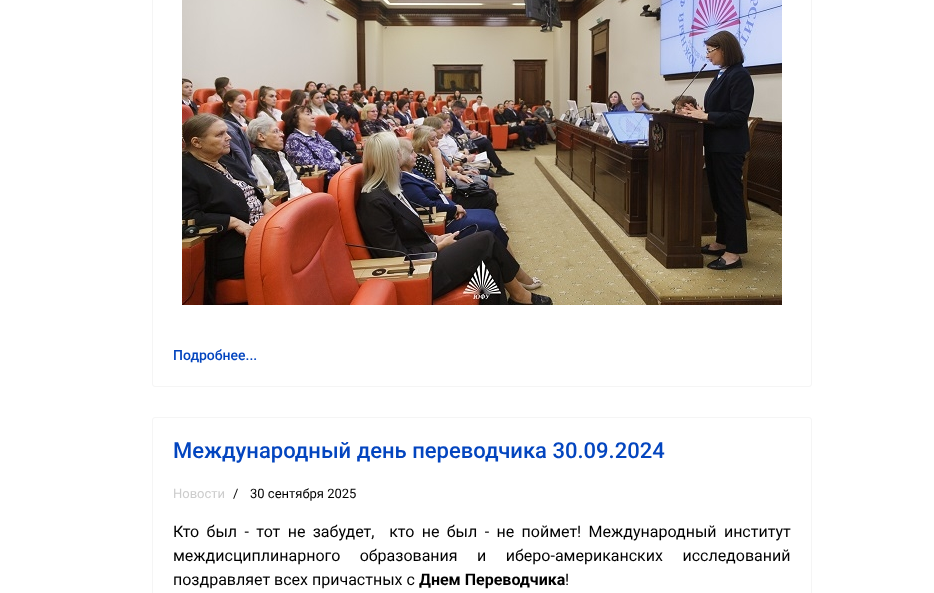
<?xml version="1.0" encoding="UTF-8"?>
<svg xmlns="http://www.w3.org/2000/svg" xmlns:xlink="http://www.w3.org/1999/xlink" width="934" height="593">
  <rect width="100%" height="100%" fill="#ffffff" />
  <rect x="152.5" y="-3.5" width="659" height="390" rx="2.5" fill="none" stroke="#f5f5f5" />
  <image x="182" y="0" width="600" height="305" xlink:href="image1.png" />
  <rect x="152.5" y="417.5" width="659" height="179" rx="2.5" fill="none" stroke="#f5f5f5" />
  <text x="173" y="360" style="font-family: Roboto; font-size: 14px; font-weight: 500; fill: #0345bf">Подробнее...</text>
  <text x="173" y="458" style="font-family: Roboto; font-size: 22px; font-weight: 500; fill: #0345bf">Международный день переводчика 30.09.2024</text>
  <text x="173" y="498" style="font-family: Roboto; font-size: 13px; fill: #cccccc">Новости</text>
  <text x="233" y="498" style="font-family: Roboto; font-size: 13px; fill: #000000">/</text>
  <text x="250" y="498" style="font-family: Roboto; font-size: 13px; fill: #000000">30 сентября 2025</text>
  <text x="173" y="537" word-spacing="3.4" style="font-family: Roboto; font-size: 16px; fill: #000000" xml:space="preserve">Кто был - тот не забудет,  кто не был - не поймет! Международный институт</text>
  <text x="173" y="561" word-spacing="15.5" style="font-family: Roboto; font-size: 16px; fill: #000000">междисциплинарного образования и иберо-американских исследований</text>
  <text x="173" y="585" style="font-family: Roboto; font-size: 16px; fill: #000000">поздравляет всех причастных с</text>
  <text x="419" y="585" style="font-family: Roboto; font-size: 16px; font-weight: bold; fill: #000000">Днем Переводчика</text>
  <text x="565" y="585" style="font-family: Roboto; font-size: 16px; fill: #000000">!</text>
</svg>
